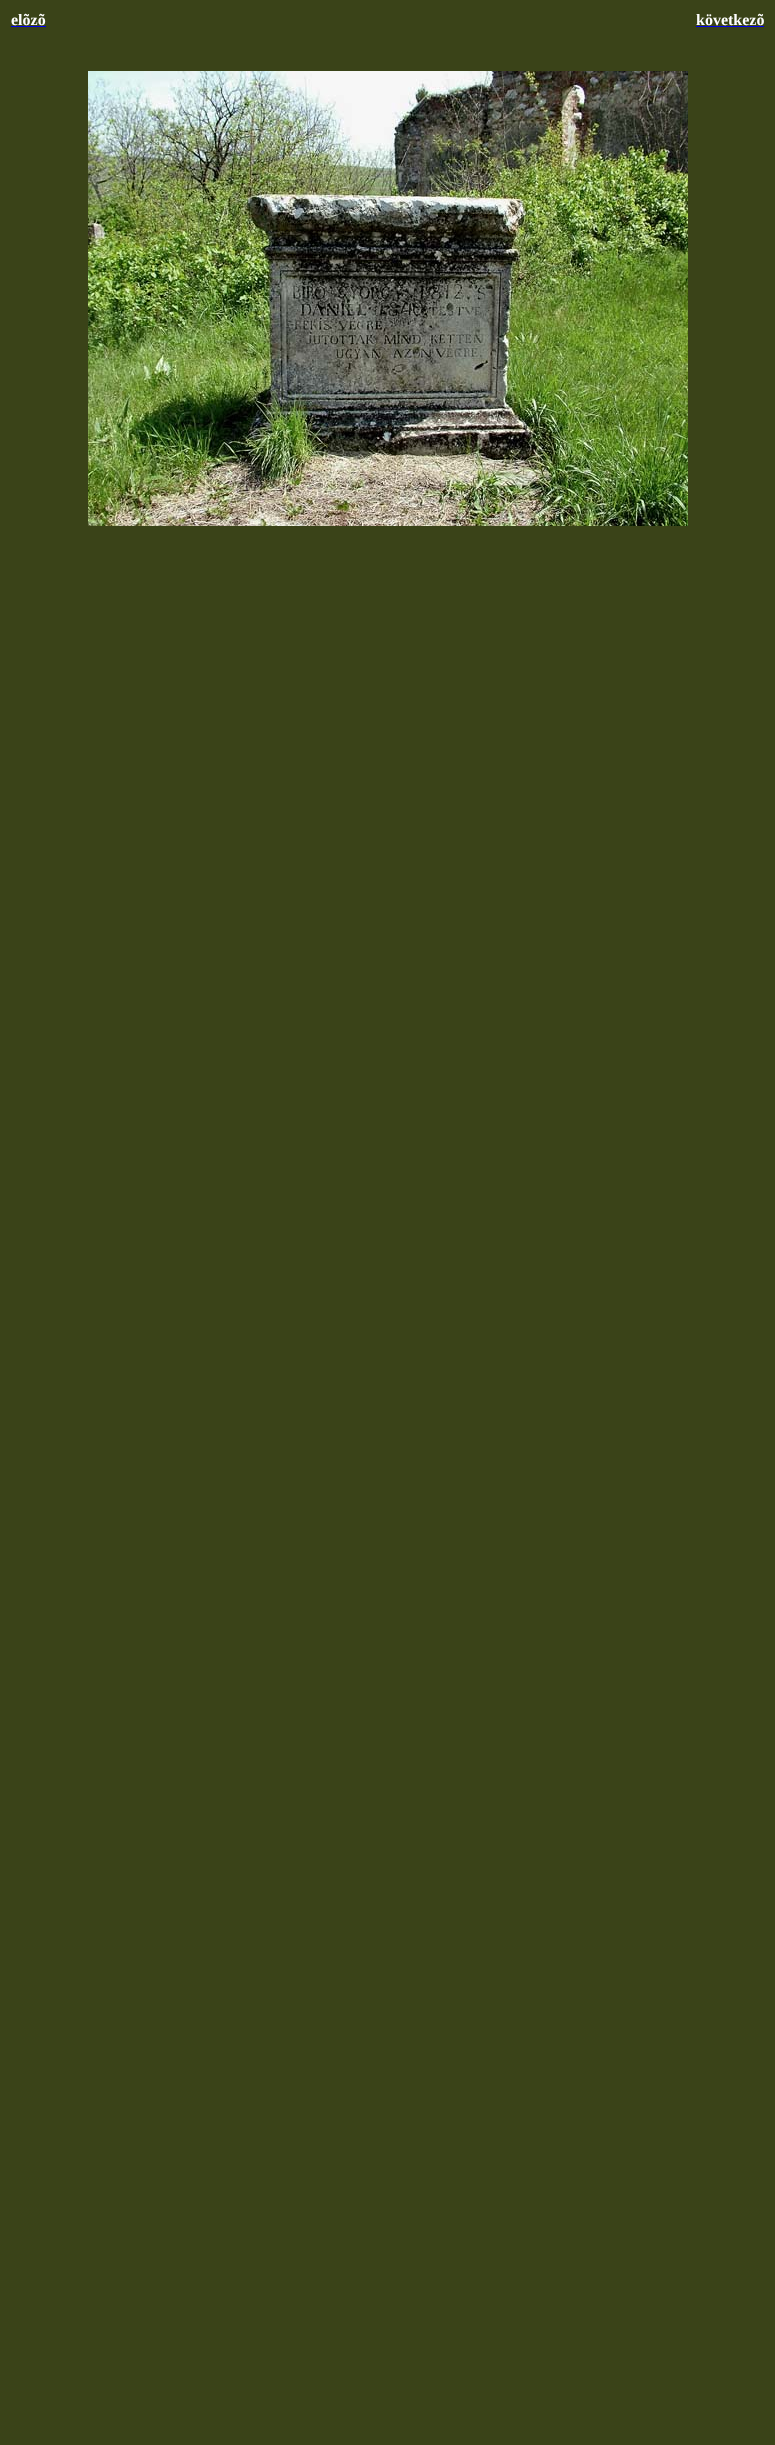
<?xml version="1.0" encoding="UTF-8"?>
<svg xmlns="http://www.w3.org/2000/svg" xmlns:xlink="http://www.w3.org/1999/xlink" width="775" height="2445">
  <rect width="100%" height="100%" fill="#3a4318" />
  <rect x="11" y="26" width="35" height="1" fill="#0000ee" />
  <rect x="696" y="26" width="68" height="1" fill="#0000ee" />
  <image x="88" y="71" width="600" height="455" xlink:href="image1.png" />
  <text x="11" y="25" style="font-family: Liberation Serif; font-size: 16px; font-weight: bold; fill: #ffffff">elõzõ</text>
  <text x="696" y="25" style="font-family: Liberation Serif; font-size: 16px; font-weight: bold; fill: #ffffff">következõ</text>
</svg>
